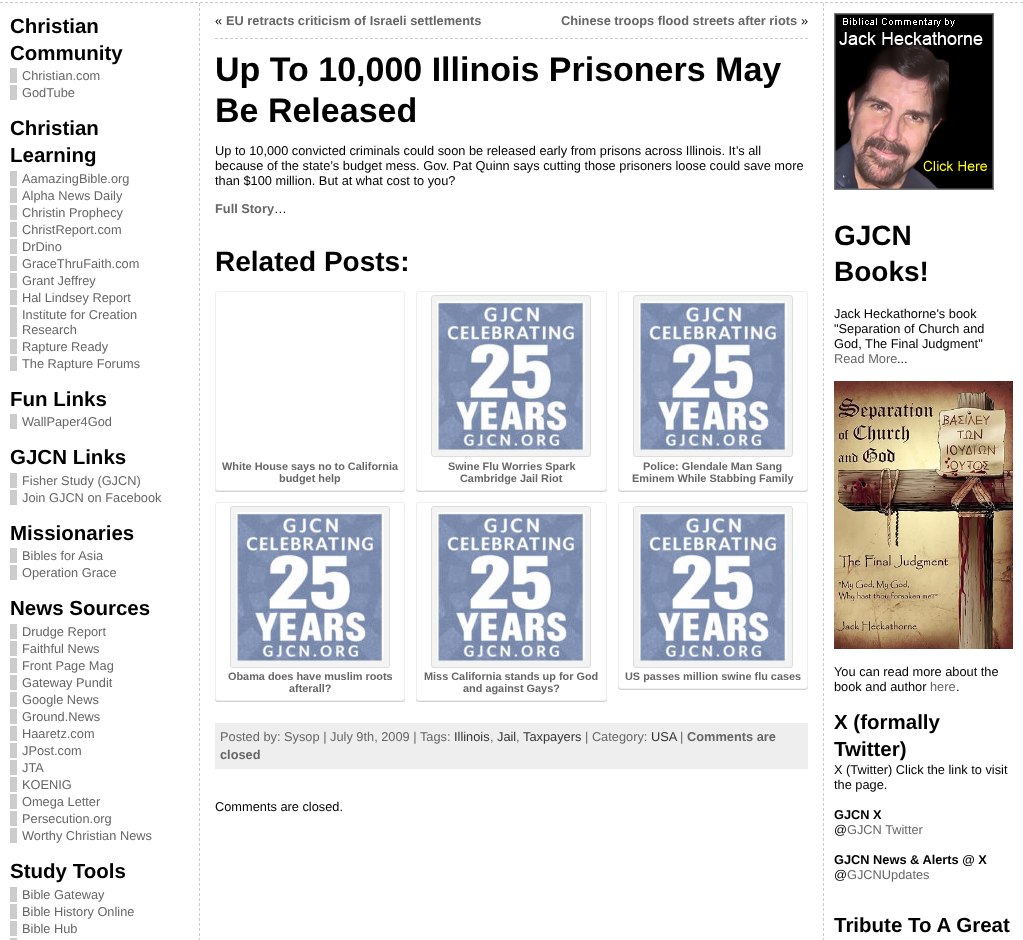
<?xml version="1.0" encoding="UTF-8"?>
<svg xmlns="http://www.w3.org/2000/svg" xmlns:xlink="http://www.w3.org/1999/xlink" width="1023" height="940">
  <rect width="100%" height="100%" fill="#ffffff" />
  <path d="M 0 2.5 h 1023" fill="none" stroke="#cccccc" stroke-dasharray="3 2" />
  <path d="M 199.5 3 v 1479" fill="none" stroke="#cccccc" stroke-dasharray="3 2" />
  <rect x="10" y="68" width="7" height="15" fill="#cccccc" />
  <rect x="10" y="85" width="7" height="15" fill="#cccccc" />
  <rect x="10" y="171" width="7" height="15" fill="#cccccc" />
  <rect x="10" y="188" width="7" height="15" fill="#cccccc" />
  <rect x="10" y="205" width="7" height="15" fill="#cccccc" />
  <rect x="10" y="222" width="7" height="15" fill="#cccccc" />
  <rect x="10" y="239" width="7" height="15" fill="#cccccc" />
  <rect x="10" y="256" width="7" height="15" fill="#cccccc" />
  <rect x="10" y="273" width="7" height="15" fill="#cccccc" />
  <rect x="10" y="290" width="7" height="15" fill="#cccccc" />
  <rect x="10" y="307" width="7" height="30" fill="#cccccc" />
  <rect x="10" y="339" width="7" height="15" fill="#cccccc" />
  <rect x="10" y="356" width="7" height="15" fill="#cccccc" />
  <rect x="10" y="414" width="7" height="15" fill="#cccccc" />
  <rect x="10" y="473" width="7" height="15" fill="#cccccc" />
  <rect x="10" y="490" width="7" height="15" fill="#cccccc" />
  <rect x="10" y="548" width="7" height="15" fill="#cccccc" />
  <rect x="10" y="565" width="7" height="15" fill="#cccccc" />
  <rect x="10" y="624" width="7" height="15" fill="#cccccc" />
  <rect x="10" y="641" width="7" height="15" fill="#cccccc" />
  <rect x="10" y="658" width="7" height="15" fill="#cccccc" />
  <rect x="10" y="675" width="7" height="15" fill="#cccccc" />
  <rect x="10" y="692" width="7" height="15" fill="#cccccc" />
  <rect x="10" y="709" width="7" height="15" fill="#cccccc" />
  <rect x="10" y="726" width="7" height="15" fill="#cccccc" />
  <rect x="10" y="743" width="7" height="15" fill="#cccccc" />
  <rect x="10" y="760" width="7" height="15" fill="#cccccc" />
  <rect x="10" y="777" width="7" height="15" fill="#cccccc" />
  <rect x="10" y="794" width="7" height="15" fill="#cccccc" />
  <rect x="10" y="811" width="7" height="15" fill="#cccccc" />
  <rect x="10" y="828" width="7" height="15" fill="#cccccc" />
  <rect x="10" y="887" width="7" height="15" fill="#cccccc" />
  <rect x="10" y="904" width="7" height="15" fill="#cccccc" />
  <rect x="10" y="921" width="7" height="15" fill="#cccccc" />
  <rect x="10" y="938" width="7" height="2" fill="#cccccc" />
  <path d="M 215 38.5 h 593" fill="none" stroke="#cccccc" stroke-dasharray="3 2" />
  <rect x="215" y="292" width="190" height="200" rx="3" fill="#000000" fill-opacity="0.18" filter="blur(0.5px)" />
  <rect x="215.5" y="291.5" width="189" height="199" rx="2.5" fill="#ffffff" stroke="#efefef" />
  <rect x="416" y="292" width="191" height="200" rx="3" fill="#000000" fill-opacity="0.18" filter="blur(0.5px)" />
  <rect x="416.5" y="291.5" width="190" height="199" rx="2.5" fill="#ffffff" stroke="#efefef" />
  <rect x="431.5" y="295.5" width="159" height="161" rx="2.5" fill="#f3f3f3" stroke="#dddddd" />
  <image x="437" y="301" width="148" height="150" xlink:href="image1.png" />
  <rect x="618" y="292" width="190" height="200" rx="3" fill="#000000" fill-opacity="0.18" filter="blur(0.5px)" />
  <rect x="618.5" y="291.5" width="189" height="199" rx="2.5" fill="#ffffff" stroke="#efefef" />
  <rect x="633.5" y="295.5" width="159" height="161" rx="2.5" fill="#f3f3f3" stroke="#dddddd" />
  <image x="639" y="301" width="148" height="150" xlink:href="image1.png" />
  <rect x="215" y="503" width="190" height="199" rx="3" fill="#000000" fill-opacity="0.18" filter="blur(0.5px)" />
  <rect x="215.5" y="502.5" width="189" height="198" rx="2.5" fill="#ffffff" stroke="#efefef" />
  <rect x="230.5" y="506.5" width="159" height="161" rx="2.5" fill="#f3f3f3" stroke="#dddddd" />
  <image x="236" y="512" width="148" height="150" xlink:href="image1.png" />
  <rect x="416" y="503" width="191" height="199" rx="3" fill="#000000" fill-opacity="0.18" filter="blur(0.5px)" />
  <rect x="416.5" y="502.5" width="190" height="198" rx="2.5" fill="#ffffff" stroke="#efefef" />
  <rect x="431.5" y="506.5" width="159" height="161" rx="2.5" fill="#f3f3f3" stroke="#dddddd" />
  <image x="437" y="512" width="148" height="150" xlink:href="image1.png" />
  <rect x="618" y="503" width="190" height="187" rx="3" fill="#000000" fill-opacity="0.18" filter="blur(0.5px)" />
  <rect x="618.5" y="502.5" width="189" height="186" rx="2.5" fill="#ffffff" stroke="#efefef" />
  <rect x="633.5" y="506.5" width="159" height="161" rx="2.5" fill="#f3f3f3" stroke="#dddddd" />
  <image x="639" y="512" width="148" height="150" xlink:href="image1.png" />
  <rect x="215" y="723" width="593" height="46" fill="#eeeeee" />
  <path d="M 823.5 3 v 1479" fill="none" stroke="#cccccc" stroke-dasharray="3 2" />
  <image x="834" y="13" width="160" height="177" xlink:href="image2.png" />
  <image x="834" y="381" width="179" height="268" xlink:href="image3.png" />
  <text x="10" y="33" style="font-family: Liberation Sans; font-size: 20.5px; font-weight: bold; fill: #000000">Christian</text>
  <text x="10" y="60" style="font-family: Liberation Sans; font-size: 20.5px; font-weight: bold; fill: #000000">Community</text>
  <text x="22" y="80" style="font-family: Liberation Sans; font-size: 12.8px; fill: #666666">Christian.com</text>
  <text x="22" y="97" style="font-family: Liberation Sans; font-size: 12.8px; fill: #666666">GodTube</text>
  <text x="10" y="135" style="font-family: Liberation Sans; font-size: 20.5px; font-weight: bold; fill: #000000">Christian</text>
  <text x="10" y="162" style="font-family: Liberation Sans; font-size: 20.5px; font-weight: bold; fill: #000000">Learning</text>
  <text x="22" y="183" style="font-family: Liberation Sans; font-size: 12.8px; fill: #666666">AamazingBible.org</text>
  <text x="22" y="200" style="font-family: Liberation Sans; font-size: 12.8px; fill: #666666">Alpha News Daily</text>
  <text x="22" y="217" style="font-family: Liberation Sans; font-size: 12.8px; fill: #666666">Christin Prophecy</text>
  <text x="22" y="234" style="font-family: Liberation Sans; font-size: 12.8px; fill: #666666">ChristReport.com</text>
  <text x="22" y="251" style="font-family: Liberation Sans; font-size: 12.8px; fill: #666666">DrDino</text>
  <text x="22" y="268" style="font-family: Liberation Sans; font-size: 12.8px; fill: #666666">GraceThruFaith.com</text>
  <text x="22" y="285" style="font-family: Liberation Sans; font-size: 12.8px; fill: #666666">Grant Jeffrey</text>
  <text x="22" y="302" style="font-family: Liberation Sans; font-size: 12.8px; fill: #666666">Hal Lindsey Report</text>
  <text x="22" y="319" style="font-family: Liberation Sans; font-size: 12.8px; fill: #666666">Institute for Creation</text>
  <text x="22" y="334" style="font-family: Liberation Sans; font-size: 12.8px; fill: #666666">Research</text>
  <text x="22" y="351" style="font-family: Liberation Sans; font-size: 12.8px; fill: #666666">Rapture Ready</text>
  <text x="22" y="368" style="font-family: Liberation Sans; font-size: 12.8px; fill: #666666">The Rapture Forums</text>
  <text x="10" y="406" style="font-family: Liberation Sans; font-size: 20.5px; font-weight: bold; fill: #000000">Fun Links</text>
  <text x="22" y="426" style="font-family: Liberation Sans; font-size: 12.8px; fill: #666666">WallPaper4God</text>
  <text x="10" y="464" style="font-family: Liberation Sans; font-size: 20.5px; font-weight: bold; fill: #000000">GJCN Links</text>
  <text x="22" y="485" style="font-family: Liberation Sans; font-size: 12.8px; fill: #666666">Fisher Study (GJCN)</text>
  <text x="22" y="502" style="font-family: Liberation Sans; font-size: 12.8px; fill: #666666">Join GJCN on Facebook</text>
  <text x="10" y="540" style="font-family: Liberation Sans; font-size: 20.5px; font-weight: bold; fill: #000000">Missionaries</text>
  <text x="22" y="560" style="font-family: Liberation Sans; font-size: 12.8px; fill: #666666">Bibles for Asia</text>
  <text x="22" y="577" style="font-family: Liberation Sans; font-size: 12.8px; fill: #666666">Operation Grace</text>
  <text x="10" y="615" style="font-family: Liberation Sans; font-size: 20.5px; font-weight: bold; fill: #000000">News Sources</text>
  <text x="22" y="636" style="font-family: Liberation Sans; font-size: 12.8px; fill: #666666">Drudge Report</text>
  <text x="22" y="653" style="font-family: Liberation Sans; font-size: 12.8px; fill: #666666">Faithful News</text>
  <text x="22" y="670" style="font-family: Liberation Sans; font-size: 12.8px; fill: #666666">Front Page Mag</text>
  <text x="22" y="687" style="font-family: Liberation Sans; font-size: 12.8px; fill: #666666">Gateway Pundit</text>
  <text x="22" y="704" style="font-family: Liberation Sans; font-size: 12.8px; fill: #666666">Google News</text>
  <text x="22" y="721" style="font-family: Liberation Sans; font-size: 12.8px; fill: #666666">Ground.News</text>
  <text x="22" y="738" style="font-family: Liberation Sans; font-size: 12.8px; fill: #666666">Haaretz.com</text>
  <text x="22" y="755" style="font-family: Liberation Sans; font-size: 12.8px; fill: #666666">JPost.com</text>
  <text x="22" y="772" style="font-family: Liberation Sans; font-size: 12.8px; fill: #666666">JTA</text>
  <text x="22" y="789" style="font-family: Liberation Sans; font-size: 12.8px; fill: #666666">KOENIG</text>
  <text x="22" y="806" style="font-family: Liberation Sans; font-size: 12.8px; fill: #666666">Omega Letter</text>
  <text x="22" y="823" style="font-family: Liberation Sans; font-size: 12.8px; fill: #666666">Persecution.org</text>
  <text x="22" y="840" style="font-family: Liberation Sans; font-size: 12.8px; fill: #666666">Worthy Christian News</text>
  <text x="10" y="878" style="font-family: Liberation Sans; font-size: 20.5px; font-weight: bold; fill: #000000">Study Tools</text>
  <text x="22" y="899" style="font-family: Liberation Sans; font-size: 12.8px; fill: #666666">Bible Gateway</text>
  <text x="22" y="916" style="font-family: Liberation Sans; font-size: 12.8px; fill: #666666">Bible History Online</text>
  <text x="22" y="933" style="font-family: Liberation Sans; font-size: 12.8px; fill: #666666">Bible Hub</text>
  <text x="215" y="25" style="font-family: Liberation Sans; font-size: 12.8px; fill: #000000">«</text>
  <text x="226" y="25" style="font-family: Liberation Sans; font-size: 12.8px; font-weight: bold; fill: #666666">EU retracts criticism of Israeli settlements</text>
  <text x="561" y="25" style="font-family: Liberation Sans; font-size: 12.8px; font-weight: bold; fill: #666666">Chinese troops flood streets after riots</text>
  <text x="801" y="25" style="font-family: Liberation Sans; font-size: 12.8px; fill: #000000">»</text>
  <text x="215" y="81" style="font-family: Liberation Sans; font-size: 34px; font-weight: bold; fill: #000000">Up To 10,000 Illinois Prisoners May</text>
  <text x="215" y="122" style="font-family: Liberation Sans; font-size: 34px; font-weight: bold; fill: #000000">Be Released</text>
  <text x="215" y="155" style="font-family: Liberation Sans; font-size: 12.8px; fill: #000000">Up to 10,000 convicted criminals could soon be released early from prisons across Illinois. It’s all</text>
  <text x="215" y="170" style="font-family: Liberation Sans; font-size: 12.8px; fill: #000000">because of the state’s budget mess. Gov. Pat Quinn says cutting those prisoners loose could save more</text>
  <text x="215" y="185" style="font-family: Liberation Sans; font-size: 12.8px; fill: #000000">than $100 million. But at what cost to you?</text>
  <text x="215" y="213" style="font-family: Liberation Sans; font-size: 12.8px; font-weight: bold; fill: #666666">Full Story</text>
  <text x="274" y="213" style="font-family: Liberation Sans; font-size: 12.8px; fill: #000000">…</text>
  <text x="215" y="271" style="font-family: Liberation Sans; font-size: 28px; font-weight: bold; fill: #000000">Related Posts:</text>
  <text x="222" y="470" style="font-family: Liberation Sans; font-size: 10.9px; font-weight: bold; fill: #666666">White House says no to California</text>
  <text x="279" y="482" style="font-family: Liberation Sans; font-size: 10.9px; font-weight: bold; fill: #666666">budget help</text>
  <text x="448" y="470" style="font-family: Liberation Sans; font-size: 10.9px; font-weight: bold; fill: #666666">Swine Flu Worries Spark</text>
  <text x="460" y="482" style="font-family: Liberation Sans; font-size: 10.9px; font-weight: bold; fill: #666666">Cambridge Jail Riot</text>
  <text x="643" y="470" style="font-family: Liberation Sans; font-size: 10.9px; font-weight: bold; fill: #666666">Police: Glendale Man Sang</text>
  <text x="632" y="482" style="font-family: Liberation Sans; font-size: 10.9px; font-weight: bold; fill: #666666">Eminem While Stabbing Family</text>
  <text x="228" y="680" style="font-family: Liberation Sans; font-size: 10.9px; font-weight: bold; fill: #666666">Obama does have muslim roots</text>
  <text x="289" y="692" style="font-family: Liberation Sans; font-size: 10.9px; font-weight: bold; fill: #666666">afterall?</text>
  <text x="424" y="680" style="font-family: Liberation Sans; font-size: 10.9px; font-weight: bold; fill: #666666">Miss California stands up for God</text>
  <text x="463" y="692" style="font-family: Liberation Sans; font-size: 10.9px; font-weight: bold; fill: #666666">and against Gays?</text>
  <text x="625" y="680" style="font-family: Liberation Sans; font-size: 10.9px; font-weight: bold; fill: #666666">US passes million swine flu cases</text>
  <text x="220" y="741" style="font-family: Liberation Sans; font-size: 12.8px; fill: #666666">Posted by: Sysop | July 9th, 2009 | Tags:</text>
  <text x="454" y="741" style="font-family: Liberation Sans; font-size: 12.8px; fill: #333333">Illinois</text>
  <text x="490" y="741" style="font-family: Liberation Sans; font-size: 12.8px; fill: #666666">,</text>
  <text x="497" y="741" style="font-family: Liberation Sans; font-size: 12.8px; fill: #333333">Jail</text>
  <text x="516" y="741" style="font-family: Liberation Sans; font-size: 12.8px; fill: #666666">,</text>
  <text x="523" y="741" style="font-family: Liberation Sans; font-size: 12.8px; fill: #333333">Taxpayers</text>
  <text x="585" y="741" style="font-family: Liberation Sans; font-size: 12.8px; fill: #666666">| Category:</text>
  <text x="651" y="741" style="font-family: Liberation Sans; font-size: 12.8px; fill: #333333">USA</text>
  <text x="680" y="741" style="font-family: Liberation Sans; font-size: 12.8px; fill: #666666">|</text>
  <text x="687" y="741" style="font-family: Liberation Sans; font-size: 12.8px; font-weight: bold; fill: #666666">Comments are</text>
  <text x="220" y="759" style="font-family: Liberation Sans; font-size: 12.8px; font-weight: bold; fill: #666666">closed</text>
  <text x="215" y="811" style="font-family: Liberation Sans; font-size: 12.8px; fill: #000000">Comments are closed.</text>
  <text x="834" y="245" style="font-family: Liberation Sans; font-size: 28px; font-weight: bold; fill: #000000">GJCN</text>
  <text x="834" y="281" style="font-family: Liberation Sans; font-size: 28px; font-weight: bold; fill: #000000">Books!</text>
  <text x="834" y="318" style="font-family: Liberation Sans; font-size: 12.8px; fill: #000000">Jack Heckathorne's book</text>
  <text x="834" y="333" style="font-family: Liberation Sans; font-size: 12.8px; fill: #000000">"Separation of Church and</text>
  <text x="834" y="348" style="font-family: Liberation Sans; font-size: 12.8px; fill: #000000">God, The Final Judgment"</text>
  <text x="834" y="363" style="font-family: Liberation Sans; font-size: 12.8px; fill: #666666">Read More</text>
  <text x="897" y="363" style="font-family: Liberation Sans; font-size: 12.8px; fill: #000000">...</text>
  <text x="834" y="676" style="font-family: Liberation Sans; font-size: 12.8px; fill: #000000">You can read more about the</text>
  <text x="834" y="691" style="font-family: Liberation Sans; font-size: 12.8px; fill: #000000">book and author</text>
  <text x="930" y="691" style="font-family: Liberation Sans; font-size: 12.8px; fill: #666666">here</text>
  <text x="956" y="691" style="font-family: Liberation Sans; font-size: 12.8px; fill: #000000">.</text>
  <text x="834" y="729" style="font-family: Liberation Sans; font-size: 20.5px; font-weight: bold; fill: #000000">X (formally</text>
  <text x="834" y="756" style="font-family: Liberation Sans; font-size: 20.5px; font-weight: bold; fill: #000000">Twitter)</text>
  <text x="834" y="774" style="font-family: Liberation Sans; font-size: 12.8px; fill: #000000">X (Twitter) Click the link to visit</text>
  <text x="834" y="789" style="font-family: Liberation Sans; font-size: 12.8px; fill: #000000">the page.</text>
  <text x="834" y="819" style="font-family: Liberation Sans; font-size: 12.8px; font-weight: bold; fill: #000000">GJCN X</text>
  <text x="834" y="834" style="font-family: Liberation Sans; font-size: 12.8px; fill: #000000">@</text>
  <text x="847" y="834" style="font-family: Liberation Sans; font-size: 12.8px; fill: #666666">GJCN Twitter</text>
  <text x="834" y="864" style="font-family: Liberation Sans; font-size: 12.8px; font-weight: bold; fill: #000000">GJCN News &amp; Alerts @ X</text>
  <text x="834" y="879" style="font-family: Liberation Sans; font-size: 12.8px; fill: #000000">@</text>
  <text x="847" y="879" style="font-family: Liberation Sans; font-size: 12.8px; fill: #666666">GJCNUpdates</text>
  <text x="834" y="932" style="font-family: Liberation Sans; font-size: 20.5px; font-weight: bold; fill: #000000">Tribute To A Great</text>
</svg>
